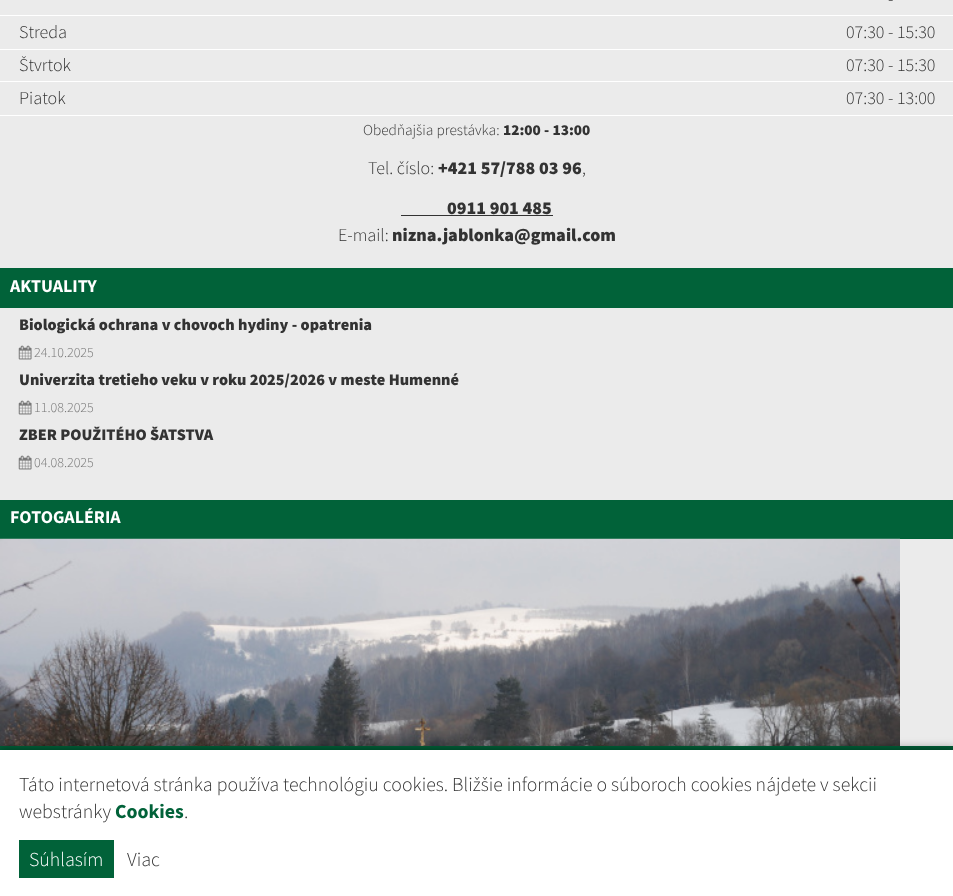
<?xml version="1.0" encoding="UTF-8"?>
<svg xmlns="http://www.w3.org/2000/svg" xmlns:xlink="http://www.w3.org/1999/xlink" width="953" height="896">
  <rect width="100%" height="100%" fill="#ebebeb" />
  <rect y="15" width="953" height="1" fill="#ffffff" />
  <rect y="49" width="953" height="1" fill="#ffffff" />
  <rect y="81" width="953" height="1" fill="#ffffff" />
  <rect y="115" width="953" height="1" fill="#ffffff" />
  <rect x="401" y="215" width="152" height="1" fill="#333333" />
  <rect y="268" width="953" height="40" fill="#016239" />
  <image x="18" y="345" width="14" height="15" xlink:href="image1.png" />
  <image x="18" y="400" width="14" height="15" xlink:href="image1.png" />
  <image x="18" y="455" width="14" height="15" xlink:href="image1.png" />
  <rect y="500" width="953" height="39" fill="#016239" />
  <image x="0" y="538" width="900" height="208" xlink:href="image2.png" />
  <rect y="746" width="953" height="4" fill="#016239" />
  <rect x="-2" y="748" width="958" height="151" fill="#000000" fill-opacity="0.4" filter="blur(5px)" />
  <rect y="750" width="953" height="146" fill="#ffffff" />
  <rect x="19" y="840" width="95" height="38" fill="#016239" />
  <text x="888" y="5" style="font-family: Source Sans Pro; font-size: 18px; font-weight: 300; fill: #333333">-</text>
  <text x="19" y="38" style="font-family: Source Sans Pro; font-size: 18px; font-weight: 300; fill: #333333">Streda</text>
  <text x="846" y="38" style="font-family: Source Sans Pro; font-size: 18px; font-weight: 300; fill: #333333">07:30 - 15:30</text>
  <text x="19" y="71" style="font-family: Source Sans Pro; font-size: 18px; font-weight: 300; fill: #333333">Štvrtok</text>
  <text x="846" y="71" style="font-family: Source Sans Pro; font-size: 18px; font-weight: 300; fill: #333333">07:30 - 15:30</text>
  <text x="19" y="104" style="font-family: Source Sans Pro; font-size: 18px; font-weight: 300; fill: #333333">Piatok</text>
  <text x="846" y="104" style="font-family: Source Sans Pro; font-size: 18px; font-weight: 300; fill: #333333">07:30 - 13:00</text>
  <text x="363" y="135" style="font-family: Source Sans Pro; font-size: 15.25px; font-weight: 300; fill: #333333">Obedňajšia prestávka:</text>
  <text x="503" y="135" style="font-family: Source Sans Pro; font-size: 15.25px; font-weight: 900; fill: #333333">12:00 - 13:00</text>
  <text x="368" y="174" style="font-family: Source Sans Pro; font-size: 18px; font-weight: 300; fill: #333333">Tel. číslo:</text>
  <text x="438" y="174" style="font-family: Source Sans Pro; font-size: 18px; font-weight: 900; fill: #333333">+421 57/788 03 96</text>
  <text x="582" y="174" style="font-family: Source Sans Pro; font-size: 18px; font-weight: 300; fill: #333333">,</text>
  <text x="447" y="214" style="font-family: Source Sans Pro; font-size: 18px; font-weight: 900; fill: #333333">0911 901 485</text>
  <text x="338" y="241" style="font-family: Source Sans Pro; font-size: 18px; font-weight: 300; fill: #333333">E-mail:</text>
  <text x="392" y="241" style="font-family: Source Sans Pro; font-size: 18px; font-weight: 900; fill: #333333">nizna.jablonka@gmail.com</text>
  <text x="10" y="292" style="font-family: Source Sans Pro; font-size: 18px; font-weight: bold; fill: #ffffff">AKTUALITY</text>
  <text x="19" y="330" style="font-family: Source Sans Pro; font-size: 16.2px; font-weight: 900; fill: #333333">Biologická ochrana v chovoch hydiny - opatrenia</text>
  <text x="34" y="357" style="font-family: Source Sans Pro; font-size: 14px; font-weight: 300; fill: #777777">24.10.2025</text>
  <text x="19" y="385" style="font-family: Source Sans Pro; font-size: 16.2px; font-weight: 900; fill: #333333">Univerzita tretieho veku v roku 2025/2026 v meste Humenné</text>
  <text x="34" y="412" style="font-family: Source Sans Pro; font-size: 14px; font-weight: 300; fill: #777777">11.08.2025</text>
  <text x="19" y="440" style="font-family: Source Sans Pro; font-size: 16.2px; font-weight: 900; fill: #333333">ZBER POUŽITÉHO ŠATSTVA</text>
  <text x="34" y="467" style="font-family: Source Sans Pro; font-size: 14px; font-weight: 300; fill: #777777">04.08.2025</text>
  <text x="10" y="523" style="font-family: Source Sans Pro; font-size: 18px; font-weight: bold; fill: #ffffff">FOTOGALÉRIA</text>
  <text x="19" y="791" style="font-family: Source Sans Pro; font-size: 19.8px; font-weight: 300; fill: #333333">Táto internetová stránka používa technológiu cookies. Bližšie informácie o súboroch cookies nájdete v sekcii</text>
  <text x="19" y="818" style="font-family: Source Sans Pro; font-size: 19.8px; font-weight: 300; fill: #333333">webstránky</text>
  <text x="115" y="818" style="font-family: Source Sans Pro; font-size: 19.8px; font-weight: bold; fill: #016239">Cookies</text>
  <text x="184" y="818" style="font-family: Source Sans Pro; font-size: 19.8px; font-weight: 300; fill: #333333">.</text>
  <text x="29" y="866" style="font-family: Source Sans Pro; font-size: 19.8px; font-weight: 300; fill: #ffffff">Súhlasím</text>
  <text x="127" y="866" style="font-family: Source Sans Pro; font-size: 19.8px; font-weight: 300; fill: #333333">Viac</text>
</svg>
